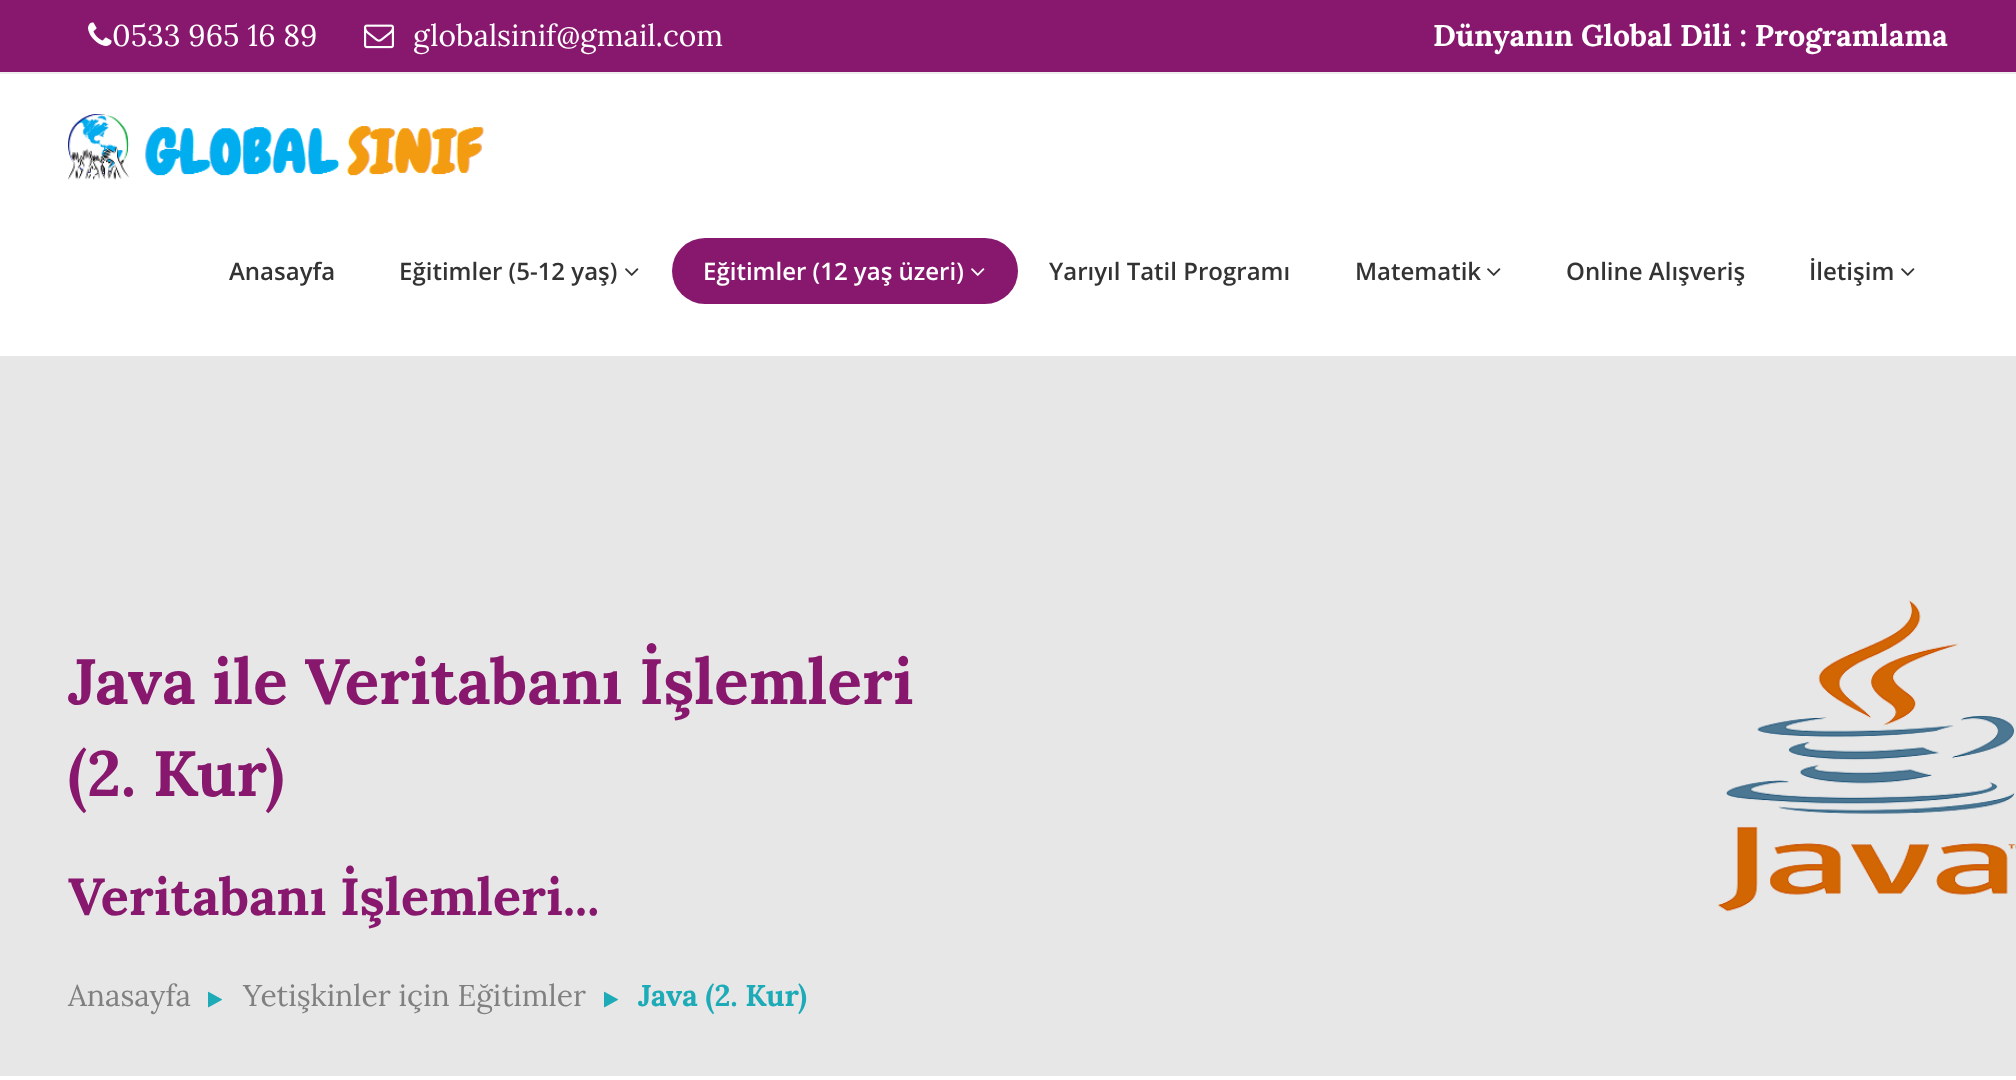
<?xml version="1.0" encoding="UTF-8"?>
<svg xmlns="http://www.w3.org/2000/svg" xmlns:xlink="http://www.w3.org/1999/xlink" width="2016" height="1080">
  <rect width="100%" height="100%" fill="#ffffff" />
  <rect y="356" width="2016" height="720" fill="#e7e7e7" />
  <rect width="2016" height="72" fill="#88186e" />
  <rect y="72" width="2016" height="2" fill="#eeeeee" />
  <image x="88" y="22" width="24" height="24" xlink:href="image1.png" />
  <image x="364" y="24" width="30" height="25" xlink:href="image2.png" />
  <image x="68" y="114" width="416" height="66" xlink:href="image3.png" />
  <image x="625" y="268" width="14" height="8" xlink:href="image4.png" />
  <rect x="672" y="238" width="346" height="66" rx="33" fill="#88186e" />
  <image x="971" y="268" width="14" height="8" xlink:href="image5.png" />
  <image x="1487" y="268" width="14" height="8" xlink:href="image4.png" />
  <image x="1901" y="268" width="14" height="8" xlink:href="image4.png" />
  <image x="1717" y="600" width="299" height="312" xlink:href="image6.png" />
  <image x="208" y="991" width="15" height="17" xlink:href="image7.png" />
  <image x="604" y="991" width="15" height="17" xlink:href="image7.png" />
  <text x="112" y="46" style="font-family: Lora; font-size: 30px; fill: #ffffff">0533 965 16 89</text>
  <text x="413" y="46" style="font-family: Lora; font-size: 30px; fill: #ffffff">globalsinif@gmail.com</text>
  <text x="1433" y="46" style="font-family: Lora; font-size: 30px; font-weight: bold; fill: #ffffff">Dünyanın Global Dili : Programlama</text>
  <text x="229" y="280" style="font-family: Open Sans; font-size: 24px; font-weight: 600; fill: #333333">Anasayfa</text>
  <text x="399" y="280" style="font-family: Open Sans; font-size: 24px; font-weight: 600; fill: #333333">Eğitimler (5-12 yaş)</text>
  <text x="703" y="280" style="font-family: Open Sans; font-size: 24px; font-weight: 600; fill: #ffffff">Eğitimler (12 yaş üzeri)</text>
  <text x="1049" y="280" style="font-family: Open Sans; font-size: 24px; font-weight: 600; fill: #333333">Yarıyıl Tatil Programı</text>
  <text x="1355" y="280" style="font-family: Open Sans; font-size: 24px; font-weight: 600; fill: #333333">Matematik</text>
  <text x="1566" y="280" style="font-family: Open Sans; font-size: 24px; font-weight: 600; fill: #333333">Online Alışveriş</text>
  <text x="1809" y="280" style="font-family: Open Sans; font-size: 24px; font-weight: 600; fill: #333333">İletişim</text>
  <text x="68" y="704" style="font-family: Lora; font-size: 64px; font-weight: bold; fill: #88186e">Java ile Veritabanı İşlemleri</text>
  <text x="68" y="796" style="font-family: Lora; font-size: 64px; font-weight: bold; fill: #88186e">(2. Kur)</text>
  <text x="68" y="915" style="font-family: Lora; font-size: 52px; font-weight: bold; fill: #88186e">Veritabanı İşlemleri...</text>
  <text x="68" y="1006" style="font-family: Lora; font-size: 30px; fill: #808080">Anasayfa</text>
  <text x="243" y="1006" style="font-family: Lora; font-size: 30px; fill: #808080">Yetişkinler için Eğitimler</text>
  <text x="638" y="1006" style="font-family: Lora; font-size: 30px; font-weight: bold; fill: #1dabb8">Java (2. Kur)</text>
</svg>
